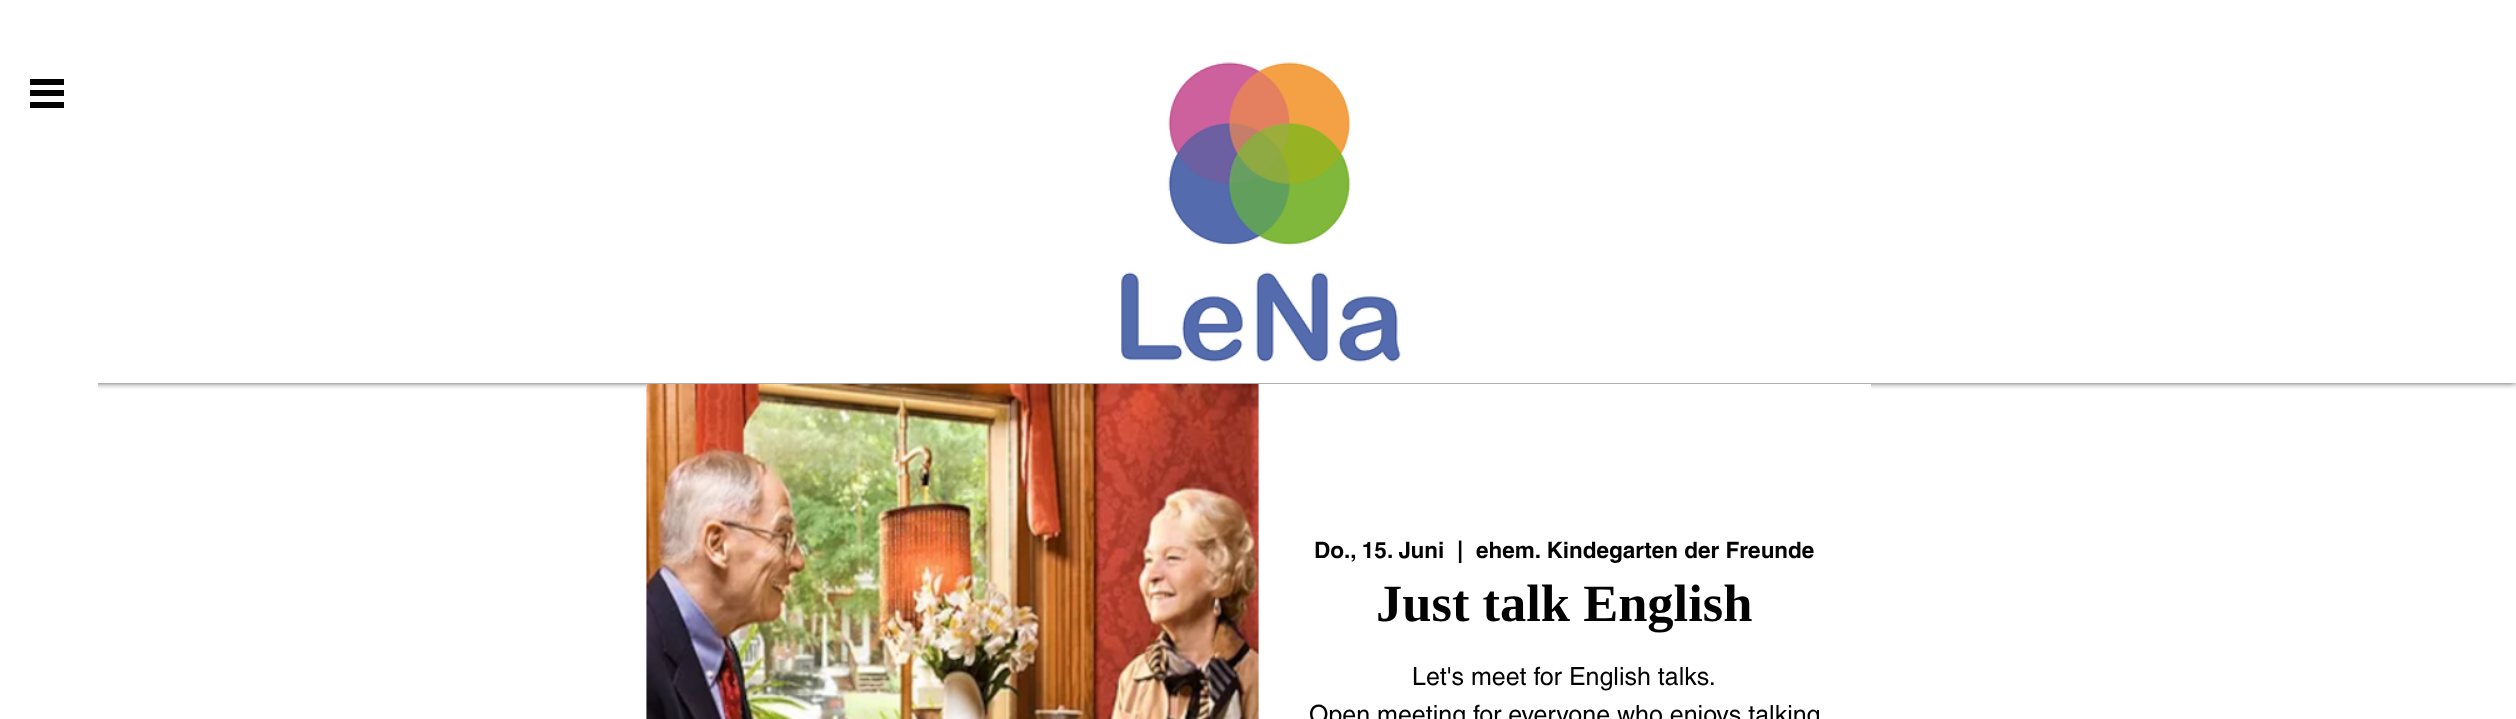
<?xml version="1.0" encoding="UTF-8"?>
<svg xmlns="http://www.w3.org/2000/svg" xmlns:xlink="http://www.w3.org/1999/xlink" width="2516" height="719">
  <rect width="100%" height="100%" fill="#ffffff" />
  <rect width="2516" height="383" fill="#000000" fill-opacity="0.7" filter="blur(3px)" />
  <rect x="98" width="2418" height="383" fill="#ffffff" />
  <image x="1121" y="62" width="280" height="300" xlink:href="image1.png" />
  <rect width="98" height="390" fill="#ffffff" />
  <rect x="30" y="79" width="34" height="6" fill="#030303" />
  <rect x="30" y="90" width="34" height="6" fill="#030303" />
  <rect x="30" y="102" width="34" height="6" fill="#030303" />
  <rect x="646" y="384" width="1225" height="6" fill="#ffffff" />
  <image x="646" y="383" width="613" height="336" xlink:href="image2.png" />
  <text x="1314" y="558" style="font-family: helvetica; font-size: 22.5px; font-weight: bold; fill: #030303">Do., 15. Juni</text>
  <text x="1457" y="558" style="font-family: helvetica; font-size: 22.5px; font-weight: bold; fill: #030303">|</text>
  <text x="1476" y="558" style="font-family: helvetica; font-size: 22.5px; font-weight: bold; fill: #030303">ehem. Kindegarten der Freunde</text>
  <text x="1376" y="621" style="font-family: Liberation Serif; font-size: 52.5px; font-weight: bold; fill: #030303">Just talk English</text>
  <text x="1412" y="685" style="font-family: helvetica; font-size: 25px; fill: #030303">Let's meet for English talks.</text>
  <text x="1309" y="723" style="font-family: helvetica; font-size: 25px; fill: #030303">Open meeting for everyone who enjoys talking</text>
</svg>
